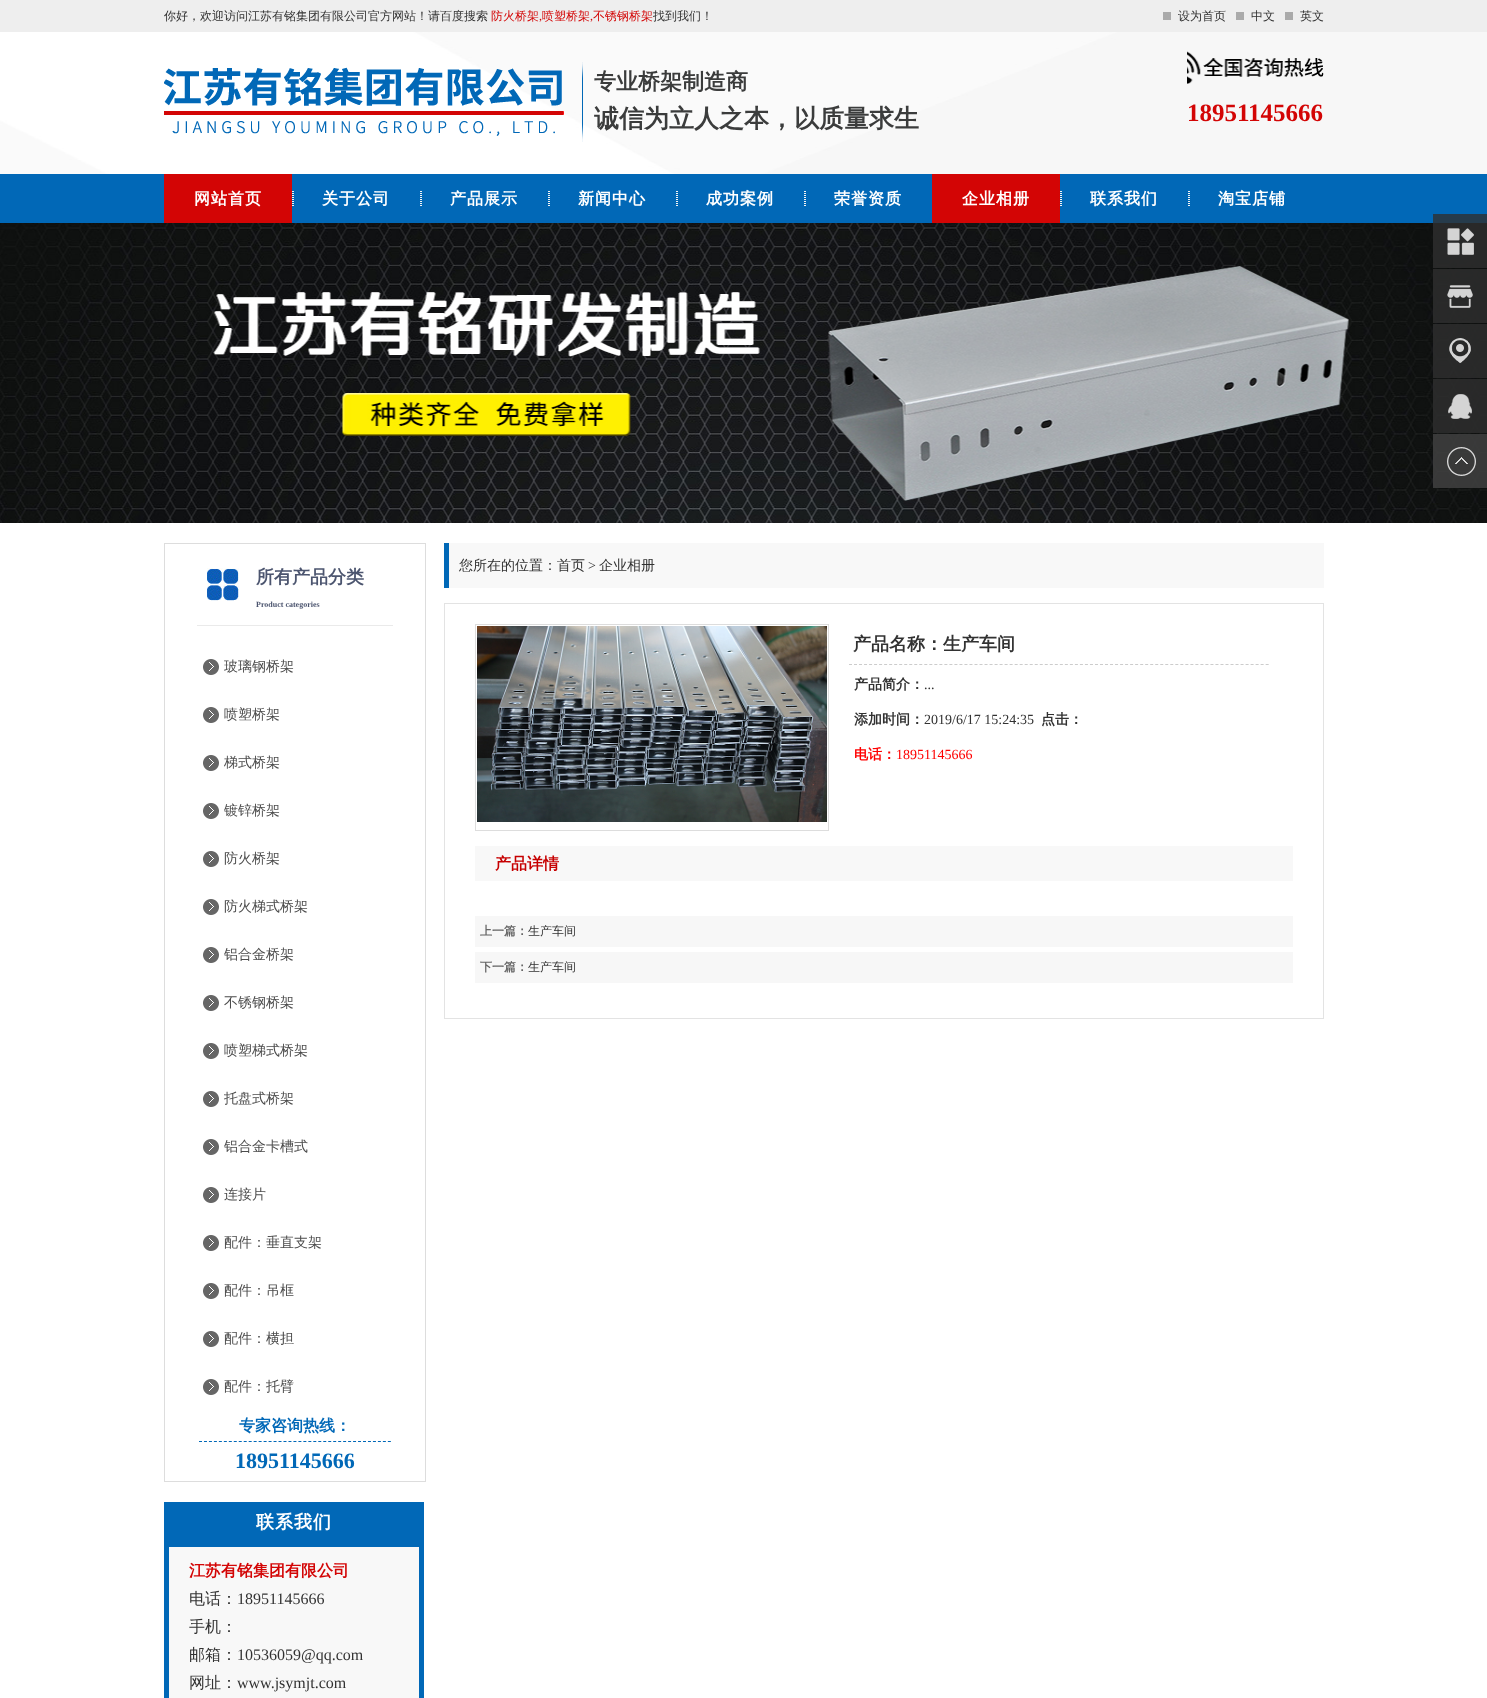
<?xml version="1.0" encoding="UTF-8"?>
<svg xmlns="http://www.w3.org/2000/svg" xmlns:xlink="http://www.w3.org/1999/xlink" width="1487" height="1698">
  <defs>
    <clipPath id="clip1"><rect x="224" y="651" width="164" height="32" /></clipPath>
    <clipPath id="clip2"><rect x="224" y="1083" width="164" height="32" /></clipPath>
  </defs>
  <rect width="100%" height="100%" fill="#ffffff" />
  <rect width="1487" height="32" fill="#eeeeee" />
  <rect x="1163" y="12" width="8" height="8" fill="#aaaaaa" />
  <rect x="1236" y="12" width="8" height="8" fill="#aaaaaa" />
  <rect x="1285" y="12" width="8" height="8" fill="#aaaaaa" />
  <image x="0" y="32" width="1487" height="142" xlink:href="image1.png" />
  <image x="164" y="62" width="419" height="80" xlink:href="image2.png" />
  <image x="1187" y="51" width="137" height="33" xlink:href="image3.png" />
  <rect y="174" width="1487" height="49" fill="#0168b7" />
  <rect x="164" y="174" width="128" height="49" fill="#d30505" />
  <image x="292" y="191" width="2" height="15" xlink:href="image4.png" />
  <image x="420" y="191" width="2" height="15" xlink:href="image4.png" />
  <image x="548" y="191" width="2" height="15" xlink:href="image4.png" />
  <image x="676" y="191" width="2" height="15" xlink:href="image4.png" />
  <image x="804" y="191" width="2" height="15" xlink:href="image4.png" />
  <rect x="932" y="174" width="128" height="49" fill="#d30505" />
  <image x="1060" y="191" width="2" height="15" xlink:href="image4.png" />
  <image x="1188" y="191" width="2" height="15" xlink:href="image4.png" />
  <image x="0" y="223" width="1487" height="300" xlink:href="image10.png" />
  <rect x="1433" y="214" width="54" height="54" fill="#303030" fill-opacity="0.8" />
  <image x="1447" y="228" width="27" height="27" xlink:href="image5.png" />
  <rect x="1433" y="269" width="54" height="54" fill="#303030" fill-opacity="0.8" />
  <image x="1447" y="285" width="26" height="23" xlink:href="image6.png" />
  <rect x="1433" y="324" width="54" height="54" fill="#303030" fill-opacity="0.8" />
  <image x="1449" y="338" width="22" height="25" xlink:href="image7.png" />
  <rect x="1433" y="379" width="54" height="54" fill="#303030" fill-opacity="0.8" />
  <image x="1448" y="394" width="24" height="25" xlink:href="image8.png" />
  <rect x="1433" y="434" width="54" height="54" fill="#444444" fill-opacity="0.8" />
  <image x="1447" y="447" width="29" height="29" xlink:href="image9.png" />
  <rect x="164.5" y="543.5" width="261" height="938" fill="none" stroke="#dddddd" />
  <image x="207" y="568" width="32" height="33" xlink:href="image11.png" />
  <rect x="197" y="625" width="196" height="1" fill="#eaeaea" />
  <image x="203" y="659" width="16" height="16" xlink:href="image12.png" />
  <image x="203" y="707" width="16" height="16" xlink:href="image12.png" />
  <image x="203" y="755" width="16" height="16" xlink:href="image12.png" />
  <image x="203" y="803" width="16" height="16" xlink:href="image12.png" />
  <image x="203" y="851" width="16" height="16" xlink:href="image12.png" />
  <image x="203" y="899" width="16" height="16" xlink:href="image12.png" />
  <image x="203" y="947" width="16" height="16" xlink:href="image12.png" />
  <image x="203" y="995" width="16" height="16" xlink:href="image12.png" />
  <image x="203" y="1043" width="16" height="16" xlink:href="image12.png" />
  <image x="203" y="1091" width="16" height="16" xlink:href="image12.png" />
  <image x="203" y="1139" width="16" height="16" xlink:href="image12.png" />
  <image x="203" y="1187" width="16" height="16" xlink:href="image12.png" />
  <image x="203" y="1235" width="16" height="16" xlink:href="image12.png" />
  <image x="203" y="1283" width="16" height="16" xlink:href="image12.png" />
  <image x="203" y="1331" width="16" height="16" xlink:href="image12.png" />
  <image x="203" y="1379" width="16" height="16" xlink:href="image12.png" />
  <path d="M 199 1441.5 h 192" fill="none" stroke="#0168b7" stroke-dasharray="3 1.97" />
  <rect x="164" y="1502" width="260" height="40" fill="#0168b7" />
  <rect x="166.5" y="1544.5" width="255" height="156" fill="#f8f8f8" stroke="#0168b7" stroke-width="5" />
  <rect x="449" y="543" width="875" height="45" fill="#f8f8f8" />
  <rect x="444" y="543" width="5" height="45" fill="#0168b7" />
  <rect x="444.5" y="603.5" width="879" height="415" fill="none" stroke="#e3e3e3" />
  <rect x="475.5" y="624.5" width="353" height="206" fill="none" stroke="#dddddd" />
  <image x="477" y="626" width="350" height="196" xlink:href="image13.png" />
  <path d="M 849 664.5 h 420" fill="none" stroke="#cccccc" stroke-dasharray="3 2.02" />
  <rect x="475" y="846" width="818" height="35" fill="#f8f8f8" />
  <rect x="475" y="916" width="818" height="31" fill="#f7f7f7" />
  <rect x="475" y="952" width="818" height="31" fill="#f7f7f7" />
  <text x="164" y="20" style="font-family: WenQuanYi Zen Hei; font-size: 12px; font-weight: 500; fill: #323232">你好，欢迎访问江苏有铭集团有限公司官方网站！请百度搜索</text>
  <text x="491" y="20" style="font-family: WenQuanYi Zen Hei; font-size: 12px; font-weight: 500; fill: #d30505">防火桥架</text>
  <text x="539" y="20" style="font-family: Liberation Serif; font-size: 12px; fill: #d30505">,</text>
  <text x="542" y="20" style="font-family: WenQuanYi Zen Hei; font-size: 12px; font-weight: 500; fill: #d30505">喷塑桥架</text>
  <text x="590" y="20" style="font-family: Liberation Serif; font-size: 12px; fill: #d30505">,</text>
  <text x="593" y="20" style="font-family: WenQuanYi Zen Hei; font-size: 12px; font-weight: 500; fill: #d30505">不锈钢桥架</text>
  <text x="653" y="20" style="font-family: WenQuanYi Zen Hei; font-size: 12px; font-weight: 500; fill: #323232">找到我们！</text>
  <text x="1178" y="20" style="font-family: WenQuanYi Zen Hei; font-size: 12px; font-weight: 500; fill: #323232">设为首页</text>
  <text x="1251" y="20" style="font-family: WenQuanYi Zen Hei; font-size: 12px; font-weight: 500; fill: #323232">中文</text>
  <text x="1300" y="20" style="font-family: WenQuanYi Zen Hei; font-size: 12px; font-weight: 500; fill: #323232">英文</text>
  <text x="594" y="89" style="font-family: WenQuanYi Zen Hei; font-size: 22px; font-weight: bold; fill: #3b3c3c">专业桥架制造商</text>
  <text x="594" y="127" style="font-family: WenQuanYi Zen Hei; font-size: 25px; font-weight: bold; fill: #3b3c3c">诚信为立人之本，以质量求生</text>
  <text x="1187" y="121" style="font-family: Liberation Serif; font-size: 25px; font-weight: bold; fill: #d30505">18951145666</text>
  <text x="194" y="204" style="font-family: WenQuanYi Zen Hei; font-size: 16px; font-weight: bold; letter-spacing: 1px; fill: #ffffff">网站首页</text>
  <text x="322" y="204" style="font-family: WenQuanYi Zen Hei; font-size: 16px; font-weight: bold; letter-spacing: 1px; fill: #ffffff">关于公司</text>
  <text x="450" y="204" style="font-family: WenQuanYi Zen Hei; font-size: 16px; font-weight: bold; letter-spacing: 1px; fill: #ffffff">产品展示</text>
  <text x="578" y="204" style="font-family: WenQuanYi Zen Hei; font-size: 16px; font-weight: bold; letter-spacing: 1px; fill: #ffffff">新闻中心</text>
  <text x="706" y="204" style="font-family: WenQuanYi Zen Hei; font-size: 16px; font-weight: bold; letter-spacing: 1px; fill: #ffffff">成功案例</text>
  <text x="834" y="204" style="font-family: WenQuanYi Zen Hei; font-size: 16px; font-weight: bold; letter-spacing: 1px; fill: #ffffff">荣誉资质</text>
  <text x="962" y="204" style="font-family: WenQuanYi Zen Hei; font-size: 16px; font-weight: bold; letter-spacing: 1px; fill: #ffffff">企业相册</text>
  <text x="1090" y="204" style="font-family: WenQuanYi Zen Hei; font-size: 16px; font-weight: bold; letter-spacing: 1px; fill: #ffffff">联系我们</text>
  <text x="1218" y="204" style="font-family: WenQuanYi Zen Hei; font-size: 16px; font-weight: bold; letter-spacing: 1px; fill: #ffffff">淘宝店铺</text>
  <text x="256" y="583" style="font-family: WenQuanYi Zen Hei; font-size: 18px; font-weight: bold; fill: #4c556f">所有产品分类</text>
  <text x="256" y="607" style="font-family: Liberation Serif; font-size: 8px; font-weight: bold; fill: #4c556f">Product categories</text>
  <g clip-path="url(#clip1)">
    <text x="224" y="671" style="font-family: WenQuanYi Zen Hei; font-size: 14px; font-weight: 500; fill: #4c4c4c">玻璃钢桥架</text>
  </g>
  <text x="224" y="719" style="font-family: WenQuanYi Zen Hei; font-size: 14px; font-weight: 500; fill: #4c4c4c">喷塑桥架</text>
  <text x="224" y="767" style="font-family: WenQuanYi Zen Hei; font-size: 14px; font-weight: 500; fill: #4c4c4c">梯式桥架</text>
  <text x="224" y="815" style="font-family: WenQuanYi Zen Hei; font-size: 14px; font-weight: 500; fill: #4c4c4c">镀锌桥架</text>
  <text x="224" y="863" style="font-family: WenQuanYi Zen Hei; font-size: 14px; font-weight: 500; fill: #4c4c4c">防火桥架</text>
  <text x="224" y="911" style="font-family: WenQuanYi Zen Hei; font-size: 14px; font-weight: 500; fill: #4c4c4c">防火梯式桥架</text>
  <text x="224" y="959" style="font-family: WenQuanYi Zen Hei; font-size: 14px; font-weight: 500; fill: #4c4c4c">铝合金桥架</text>
  <text x="224" y="1007" style="font-family: WenQuanYi Zen Hei; font-size: 14px; font-weight: 500; fill: #4c4c4c">不锈钢桥架</text>
  <text x="224" y="1055" style="font-family: WenQuanYi Zen Hei; font-size: 14px; font-weight: 500; fill: #4c4c4c">喷塑梯式桥架</text>
  <g clip-path="url(#clip2)">
    <text x="224" y="1103" style="font-family: WenQuanYi Zen Hei; font-size: 14px; font-weight: 500; fill: #4c4c4c">托盘式桥架</text>
  </g>
  <text x="224" y="1151" style="font-family: WenQuanYi Zen Hei; font-size: 14px; font-weight: 500; fill: #4c4c4c">铝合金卡槽式</text>
  <text x="224" y="1199" style="font-family: WenQuanYi Zen Hei; font-size: 14px; font-weight: 500; fill: #4c4c4c">连接片</text>
  <text x="224" y="1247" style="font-family: WenQuanYi Zen Hei; font-size: 14px; font-weight: 500; fill: #4c4c4c">配件：垂直支架</text>
  <text x="224" y="1295" style="font-family: WenQuanYi Zen Hei; font-size: 14px; font-weight: 500; fill: #4c4c4c">配件：吊框</text>
  <text x="224" y="1343" style="font-family: WenQuanYi Zen Hei; font-size: 14px; font-weight: 500; fill: #4c4c4c">配件：横担</text>
  <text x="224" y="1391" style="font-family: WenQuanYi Zen Hei; font-size: 14px; font-weight: 500; fill: #4c4c4c">配件：托臂</text>
  <text x="239" y="1431" style="font-family: WenQuanYi Zen Hei; font-size: 16px; font-weight: bold; fill: #0168b7">专家咨询热线：</text>
  <text x="235" y="1468" style="font-family: Liberation Serif; font-size: 22px; font-weight: bold; fill: #0168b7">18951145666</text>
  <text x="256" y="1528" style="font-family: WenQuanYi Zen Hei; font-size: 18px; font-weight: bold; letter-spacing: 1px; fill: #ffffff">联系我们</text>
  <text x="189" y="1576" style="font-family: WenQuanYi Zen Hei; font-size: 16px; font-weight: bold; fill: #d30505">江苏有铭集团有限公司</text>
  <text x="189" y="1604" style="font-family: WenQuanYi Zen Hei; font-size: 16px; font-weight: 500; fill: #323232">电话：</text>
  <text x="237" y="1604" style="font-family: Liberation Serif; font-size: 16px; fill: #323232">18951145666</text>
  <text x="189" y="1632" style="font-family: WenQuanYi Zen Hei; font-size: 16px; font-weight: 500; fill: #323232">手机：</text>
  <text x="189" y="1660" style="font-family: WenQuanYi Zen Hei; font-size: 16px; font-weight: 500; fill: #323232">邮箱：</text>
  <text x="237" y="1660" style="font-family: Liberation Serif; font-size: 16px; fill: #323232">10536059@qq.com</text>
  <text x="189" y="1688" style="font-family: WenQuanYi Zen Hei; font-size: 16px; font-weight: 500; fill: #323232">网址：</text>
  <text x="237" y="1688" style="font-family: Liberation Serif; font-size: 16px; fill: #323232">www.jsymjt.com</text>
  <text x="459" y="570" style="font-family: WenQuanYi Zen Hei; font-size: 14px; font-weight: 500; fill: #323232">您所在的位置：</text>
  <text x="557" y="570" style="font-family: WenQuanYi Zen Hei; font-size: 14px; font-weight: 500; fill: #323232">首页</text>
  <text x="588" y="570" style="font-family: Liberation Serif; font-size: 14px; fill: #323232">&gt;</text>
  <text x="599" y="570" style="font-family: WenQuanYi Zen Hei; font-size: 14px; font-weight: 500; fill: #323232">企业相册</text>
  <text x="853" y="650" style="font-family: WenQuanYi Zen Hei; font-size: 18px; font-weight: bold; fill: #323232">产品名称：生产车间</text>
  <text x="854" y="689" style="font-family: WenQuanYi Zen Hei; font-size: 14px; font-weight: bold; fill: #323232">产品简介：</text>
  <text x="924" y="689" style="font-family: Liberation Serif; font-size: 14px; fill: #323232">...</text>
  <text x="854" y="724" style="font-family: WenQuanYi Zen Hei; font-size: 14px; font-weight: bold; fill: #323232">添加时间：</text>
  <text x="924" y="724" style="font-family: Liberation Serif; font-size: 14px; fill: #323232">2019/6/17 15:24:35</text>
  <text x="1041" y="724" style="font-family: WenQuanYi Zen Hei; font-size: 14px; font-weight: bold; fill: #323232">点击：</text>
  <text x="854" y="759" style="font-family: WenQuanYi Zen Hei; font-size: 14px; font-weight: bold; fill: #ff0000">电话：</text>
  <text x="896" y="759" style="font-family: Liberation Serif; font-size: 14px; fill: #ff0000">18951145666</text>
  <text x="495" y="869" style="font-family: WenQuanYi Zen Hei; font-size: 16px; font-weight: bold; fill: #c60001">产品详情</text>
  <text x="480" y="935" style="font-family: WenQuanYi Zen Hei; font-size: 12px; font-weight: bold; fill: #666666">上一篇：</text>
  <text x="528" y="935" style="font-family: WenQuanYi Zen Hei; font-size: 12px; font-weight: 500; fill: #323232">生产车间</text>
  <text x="480" y="971" style="font-family: WenQuanYi Zen Hei; font-size: 12px; font-weight: bold; fill: #666666">下一篇：</text>
  <text x="528" y="971" style="font-family: WenQuanYi Zen Hei; font-size: 12px; font-weight: 500; fill: #323232">生产车间</text>
</svg>
